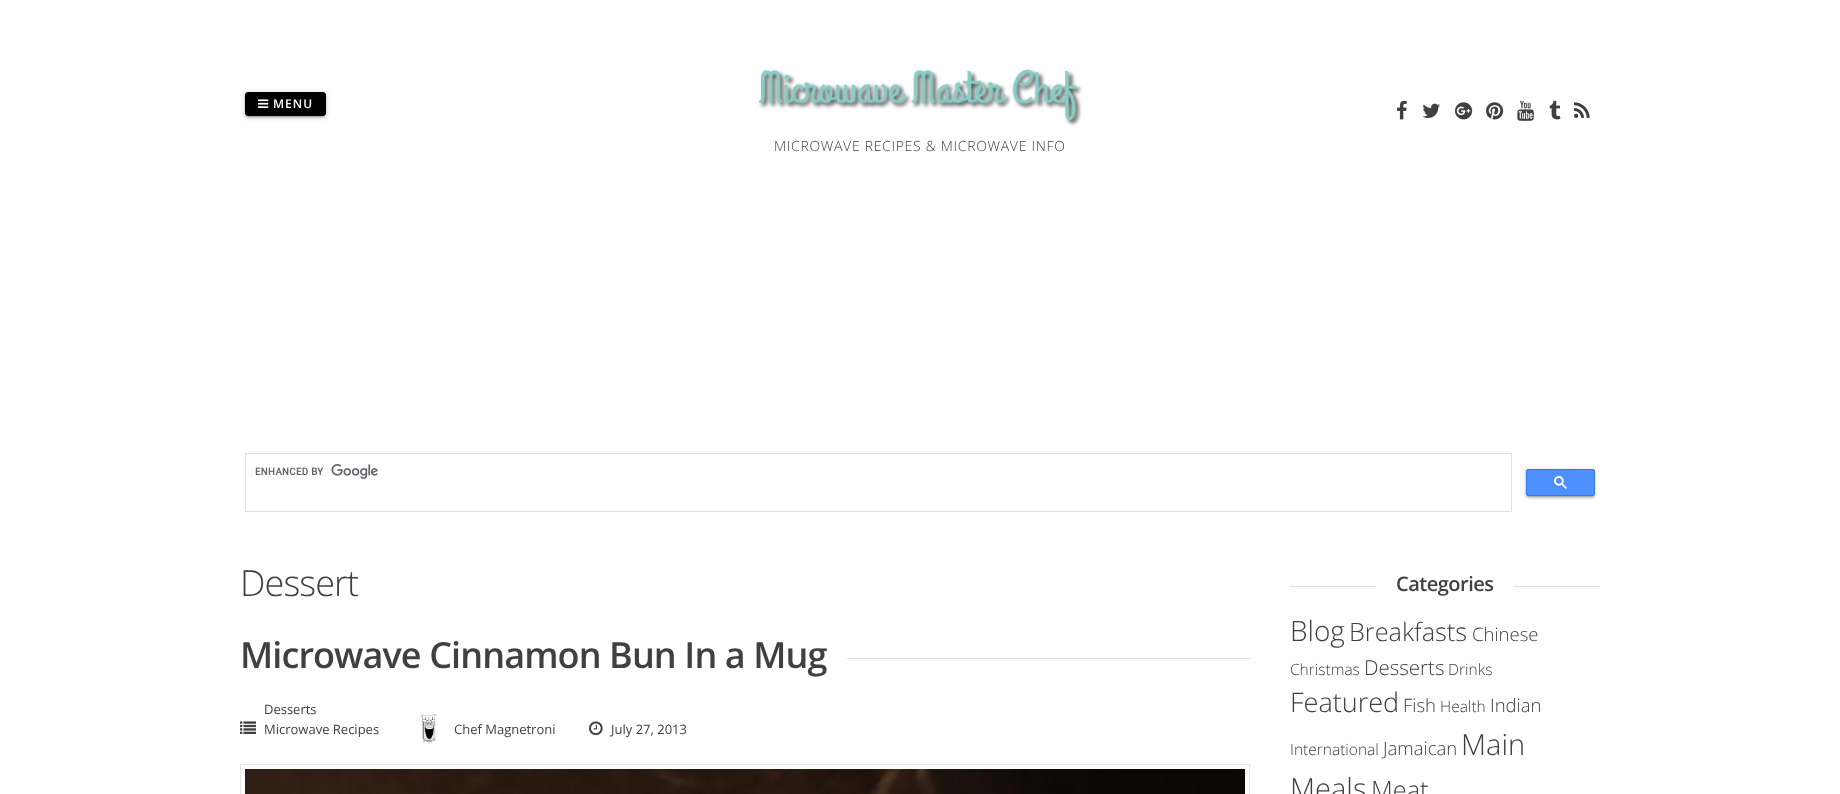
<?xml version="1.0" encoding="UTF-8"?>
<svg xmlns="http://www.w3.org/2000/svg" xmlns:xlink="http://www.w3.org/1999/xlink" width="1840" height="794">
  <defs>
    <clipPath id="clip1"><rect x="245" y="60" width="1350" height="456" /></clipPath>
  </defs>
  <rect width="100%" height="100%" fill="#ffffff" />
  <rect x="245" y="93" width="81" height="24" rx="3" fill="#000000" fill-opacity="0.2" filter="blur(2.5px)" />
  <rect x="247" y="97" width="77" height="20" rx="1" fill="#000000" fill-opacity="0.12" filter="blur(0.5px)" />
  <rect x="245" y="94" width="81" height="24" rx="3" fill="#000000" fill-opacity="0.14" filter="blur(1px)" />
  <rect x="245.5" y="92.5" width="80" height="23" rx="2.5" fill="#000000" stroke="#000000" />
  <image x="258" y="99" width="11" height="9" xlink:href="image1.png" />
  <image x="1397" y="100" width="10" height="20" xlink:href="image2.png" />
  <image x="1422" y="103" width="18" height="15" xlink:href="image3.png" />
  <image x="1455" y="102" width="18" height="18" xlink:href="image4.png" />
  <image x="1486" y="102" width="18" height="18" xlink:href="image5.png" />
  <image x="1517" y="100" width="17" height="21" xlink:href="image6.png" />
  <image x="1549" y="100" width="12" height="20" xlink:href="image7.png" />
  <image x="1574" y="102" width="16" height="16" xlink:href="image8.png" />
  <image x="758" y="69" width="324" height="57" xlink:href="image9.png" />
  <rect x="245.5" y="453.5" width="1266" height="58" fill="none" stroke="#dfe1e5" />
  <image x="255" y="464" width="123" height="15" xlink:href="image10.png" />
  <g clip-path="url(#clip1)">
    <rect x="1526" y="470" width="69" height="27" rx="2" fill="#000000" fill-opacity="0.2" filter="blur(2.5px)" />
  </g>
  <rect x="1528" y="474" width="65" height="23" fill="#000000" fill-opacity="0.12" filter="blur(0.5px)" />
  <rect x="1526" y="471" width="69" height="27" rx="2" fill="#000000" fill-opacity="0.14" filter="blur(1px)" />
  <rect x="1526.5" y="469.5" width="68" height="26" rx="1.5" fill="#4d90fe" stroke="#3079ed" />
  <image x="1554" y="476" width="13" height="13" xlink:href="image11.png" />
  <rect x="847" y="658" width="403" height="1" fill="#e5e5e5" />
  <image x="240" y="721" width="16" height="13" xlink:href="image12.png" />
  <image x="420" y="714" width="17" height="29" xlink:href="image13.png" />
  <image x="589" y="721" width="14" height="15" xlink:href="image14.png" />
  <rect x="240.5" y="764.5" width="1009" height="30" fill="none" stroke="#e5e5e5" />
  <image x="245" y="769" width="1000" height="25" xlink:href="image15.png" />
  <rect x="1290" y="586" width="310" height="1" fill="#e5e5e5" />
  <rect x="1376" y="586" width="138" height="1" fill="#ffffff" />
  <text x="273" y="108" style="font-family: Open Sans; font-size: 12px; font-weight: 600; letter-spacing: 1px; fill: #ffffff">MENU</text>
  <text x="774" y="151" style="font-family: Open Sans; font-size: 14px; font-weight: 300; letter-spacing: 0.7px; fill: #404040">MICROWAVE RECIPES &amp; MICROWAVE INFO</text>
  <text x="240" y="596" style="font-family: Open Sans; font-size: 36px; font-weight: 300; letter-spacing: -0.9px; fill: #404040">Dessert</text>
  <text x="240" y="668" style="font-family: Open Sans; font-size: 36px; font-weight: 600; letter-spacing: -0.9px; fill: #404040">Microwave Cinnamon Bun In a Mug</text>
  <text x="264" y="714" style="font-family: Open Sans; font-size: 13px; fill: #404040">Desserts</text>
  <text x="264" y="734" style="font-family: Open Sans; font-size: 13px; fill: #404040">Microwave Recipes</text>
  <text x="454" y="734" style="font-family: Open Sans; font-size: 13px; fill: #404040">Chef Magnetroni</text>
  <text x="611" y="734" style="font-family: Open Sans; font-size: 13px; fill: #404040">July 27, 2013</text>
  <text x="1396" y="591" style="font-family: Open Sans; font-size: 20px; font-weight: 600; letter-spacing: -0.5px; fill: #404040">Categories</text>
  <text x="1290" y="641" style="font-family: Open Sans; font-size: 28px; font-weight: 300; fill: #404040">Blog</text>
  <text x="1349" y="641" style="font-family: Open Sans; font-size: 25.25px; font-weight: 300; fill: #404040">Breakfasts</text>
  <text x="1472" y="641" style="font-family: Open Sans; font-size: 18.5px; font-weight: 300; fill: #404040">Chinese</text>
  <text x="1290" y="675" style="font-family: Open Sans; font-size: 15.5px; font-weight: 300; fill: #404040">Christmas</text>
  <text x="1364" y="675" style="font-family: Open Sans; font-size: 20.5px; font-weight: 300; fill: #404040">Desserts</text>
  <text x="1448" y="675" style="font-family: Open Sans; font-size: 15.5px; font-weight: 300; fill: #404040">Drinks</text>
  <text x="1290" y="712" style="font-family: Open Sans; font-size: 27px; font-weight: 300; fill: #404040">Featured</text>
  <text x="1403" y="712" style="font-family: Open Sans; font-size: 18.5px; font-weight: 300; fill: #404040">Fish</text>
  <text x="1440" y="712" style="font-family: Open Sans; font-size: 15.5px; font-weight: 300; fill: #404040">Health</text>
  <text x="1490" y="712" style="font-family: Open Sans; font-size: 18.5px; font-weight: 300; fill: #404040">Indian</text>
  <text x="1290" y="755" style="font-family: Open Sans; font-size: 15.5px; font-weight: 300; fill: #404040">International</text>
  <text x="1383" y="755" style="font-family: Open Sans; font-size: 18.5px; font-weight: 300; fill: #404040">Jamaican</text>
  <text x="1461" y="755" style="font-family: Open Sans; font-size: 29px; font-weight: 300; fill: #404040">Main</text>
  <text x="1290" y="799" style="font-family: Open Sans; font-size: 29px; font-weight: 300; fill: #404040">Meals</text>
  <text x="1371" y="799" style="font-family: Open Sans; font-size: 25.25px; font-weight: 300; fill: #404040">Meat</text>
</svg>
